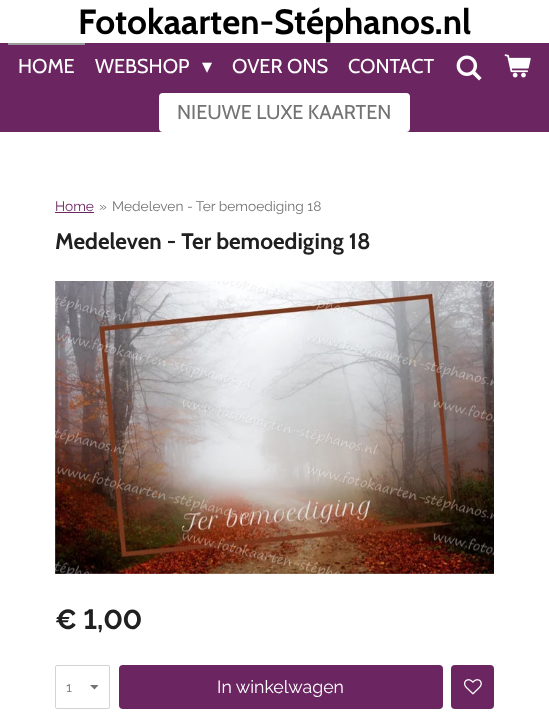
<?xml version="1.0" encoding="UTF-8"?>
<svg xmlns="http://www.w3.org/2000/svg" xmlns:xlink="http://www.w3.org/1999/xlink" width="549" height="719">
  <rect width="100%" height="100%" fill="#ffffff" />
  <rect y="43" width="549" height="89" fill="#6b2561" />
  <rect x="8" y="43" width="77" height="2" fill="#999999" />
  <image x="456" y="55" width="26" height="26" xlink:href="image1.png" />
  <image x="504" y="54" width="27" height="24" xlink:href="image2.png" />
  <rect x="159" y="93" width="251" height="39" rx="4" fill="#ffffff" />
  <rect x="55" y="212" width="39" height="1" fill="#6b2561" />
  <image x="55" y="281" width="439" height="293" xlink:href="image3.png" />
  <path d="M 94.5 689.5 l -4.5 -4.5 h 8.5 z" fill="#737373" />
  <rect x="55.5" y="665.5" width="54" height="43" rx="1.5" fill="none" stroke="#d3d3d3" />
  <rect x="119" y="665" width="324" height="44" rx="4" fill="#6b2561" />
  <rect x="451" y="665" width="43" height="44" rx="4" fill="#6b2561" />
  <image x="464" y="679" width="18" height="16" xlink:href="image4.png" />
  <text x="78" y="34" style="font-family: Cabin; font-size: 35px; font-weight: bold; fill: #000000">Fotokaarten-Stéphanos.nl</text>
  <text x="18" y="73" style="font-family: Cabin; font-size: 20px; fill: #ffffff">HOME</text>
  <text x="95" y="73" style="font-family: Cabin; font-size: 20px; fill: #ffffff">WEBSHOP</text>
  <text x="202" y="73" style="font-family: DejaVu Sans; font-size: 20px; fill: #ffffff">▾</text>
  <text x="232" y="73" style="font-family: Cabin; font-size: 20px; fill: #ffffff">OVER ONS</text>
  <text x="348" y="73" style="font-family: Cabin; font-size: 20px; fill: #ffffff">CONTACT</text>
  <text x="177" y="119" style="font-family: Cabin; font-size: 20px; fill: #737373">NIEUWE LUXE KAARTEN</text>
  <text x="55" y="211" style="font-family: Raleway; font-size: 13.75px; fill: #6b2561">Home</text>
  <text x="99" y="211" style="font-family: Raleway; font-size: 13.75px; fill: #737373">»</text>
  <text x="112" y="211" style="font-family: Raleway; font-size: 13.75px; fill: #737373">Medeleven - Ter bemoediging 18</text>
  <text x="55" y="249" style="font-family: Cabin; font-size: 22.5px; font-weight: bold; fill: #202020">Medeleven - Ter bemoediging 18</text>
  <text x="55" y="629" style="font-family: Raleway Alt; font-size: 27.5px; font-weight: bold; fill: #202020">€ 1,00</text>
  <text x="66" y="692" style="font-family: Raleway; font-size: 13.75px; fill: #737373">1</text>
  <text x="217" y="693" style="font-family: Raleway; font-size: 17.75px; fill: #ffffff">In winkelwagen</text>
</svg>
